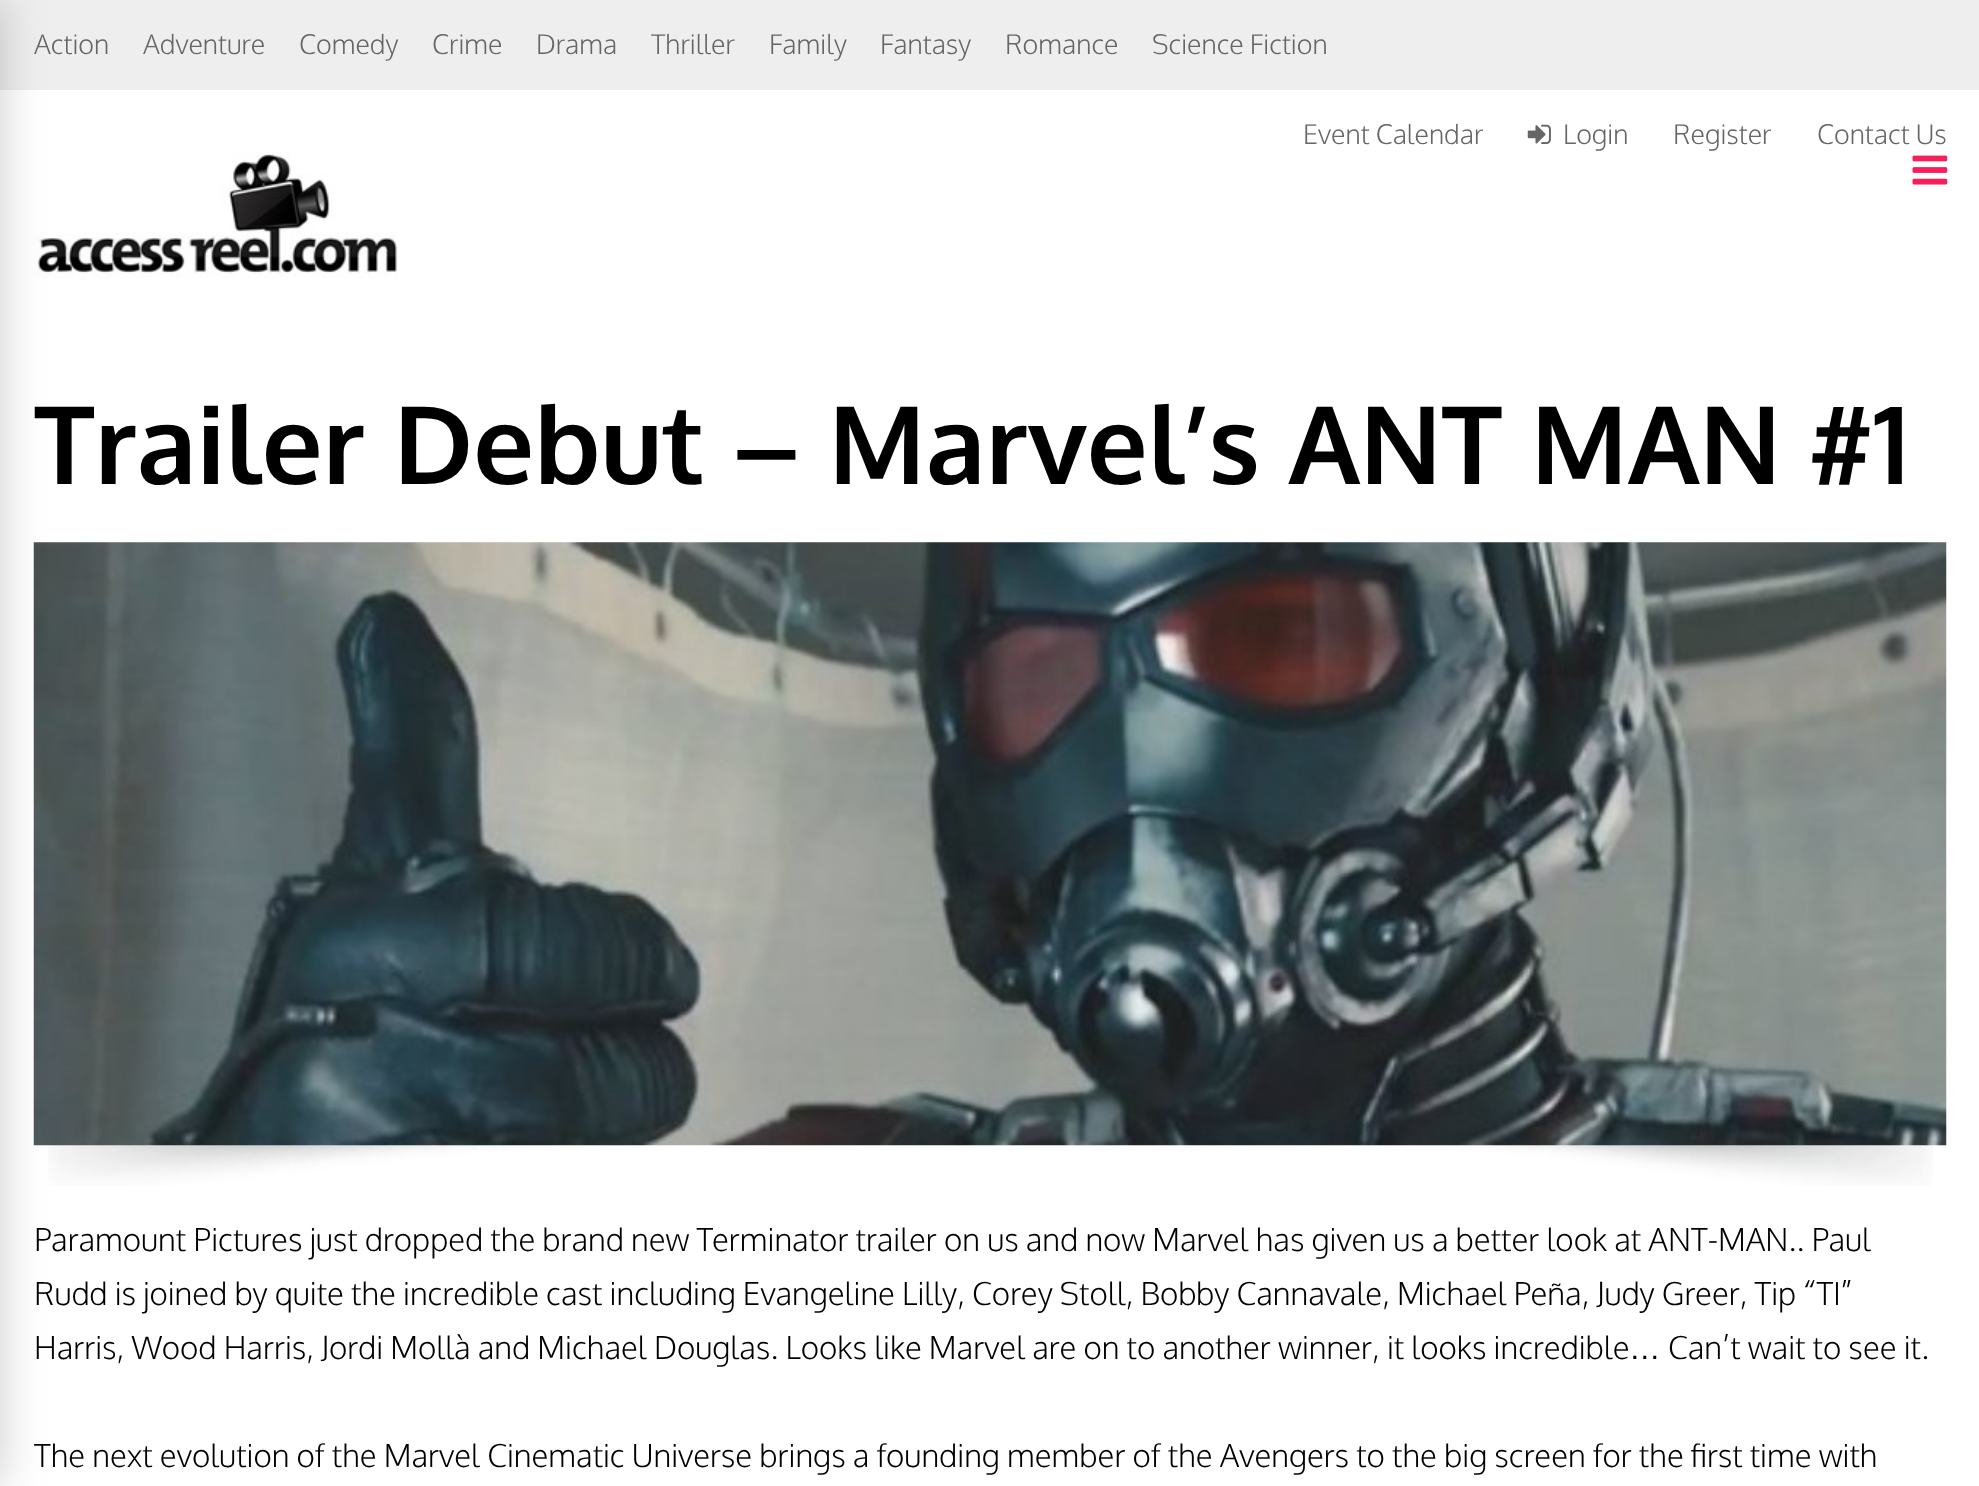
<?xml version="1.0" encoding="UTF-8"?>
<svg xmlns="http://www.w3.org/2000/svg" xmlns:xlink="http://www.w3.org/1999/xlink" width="1979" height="1486">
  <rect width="100%" height="100%" fill="#ffffff" />
  <rect width="1979" height="90" fill="#eeeeee" />
  <image x="34" y="151" width="364" height="128" xlink:href="image2.png" />
  <image x="48" y="1145" width="1885" height="41" xlink:href="image4.png" />
  <image x="33" y="542" width="1914" height="604" xlink:href="image5.png" />
  <rect x="-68" width="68" height="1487" fill="#000000" fill-opacity="0.2" filter="blur(22.5px)" />
  <image x="1527" y="124" width="24" height="20" xlink:href="image1.png" />
  <image x="1912" y="155" width="36" height="30" xlink:href="image3.png" />
  <text x="34" y="54" style="font-family: Oxygen; font-size: 27px; font-weight: 300; fill: #666666">Action</text>
  <text x="143" y="54" style="font-family: Oxygen; font-size: 27px; font-weight: 300; fill: #666666">Adventure</text>
  <text x="299" y="54" style="font-family: Oxygen; font-size: 27px; font-weight: 300; fill: #666666">Comedy</text>
  <text x="432" y="54" style="font-family: Oxygen; font-size: 27px; font-weight: 300; fill: #666666">Crime</text>
  <text x="536" y="54" style="font-family: Oxygen; font-size: 27px; font-weight: 300; fill: #666666">Drama</text>
  <text x="651" y="54" style="font-family: Oxygen; font-size: 27px; font-weight: 300; fill: #666666">Thriller</text>
  <text x="769" y="54" style="font-family: Oxygen; font-size: 27px; font-weight: 300; fill: #666666">Family</text>
  <text x="880" y="54" style="font-family: Oxygen; font-size: 27px; font-weight: 300; fill: #666666">Fantasy</text>
  <text x="1005" y="54" style="font-family: Oxygen; font-size: 27px; font-weight: 300; fill: #666666">Romance</text>
  <text x="1152" y="54" style="font-family: Oxygen; font-size: 27px; font-weight: 300; fill: #666666">Science Fiction</text>
  <text x="1303" y="144" style="font-family: Oxygen; font-size: 27px; font-weight: 300; fill: #666666">Event Calendar</text>
  <text x="1563" y="144" style="font-family: Oxygen; font-size: 27px; font-weight: 300; fill: #666666">Login</text>
  <text x="1673" y="144" style="font-family: Oxygen; font-size: 27px; font-weight: 300; fill: #666666">Register</text>
  <text x="1817" y="144" style="font-family: Oxygen; font-size: 27px; font-weight: 300; fill: #666666">Contact Us</text>
  <text x="34" y="484" style="font-family: Oxygen; font-size: 108px; font-weight: bold; fill: #000000">Trailer Debut – Marvel’s ANT MAN #1</text>
  <text x="34" y="1251" style="font-family: Oxygen; font-size: 31.5px; font-weight: 300; fill: #000000">Paramount Pictures just dropped the brand new Terminator trailer on us and now Marvel has given us a better look at ANT-MAN.. Paul</text>
  <text x="34" y="1305" style="font-family: Oxygen; font-size: 31.5px; font-weight: 300; fill: #000000">Rudd is joined by quite the incredible cast including Evangeline Lilly, Corey Stoll, Bobby Cannavale, Michael Peña, Judy Greer, Tip “TI”</text>
  <text x="34" y="1359" style="font-family: Oxygen; font-size: 31.5px; font-weight: 300; fill: #000000">Harris, Wood Harris, Jordi Mollà and Michael Douglas. Looks like Marvel are on to another winner, it looks incredible</text>
  <text x="1629" y="1359" style="font-family: Liberation Sans; font-size: 31.5px; fill: #000000">…</text>
  <text x="1668" y="1359" style="font-family: Oxygen; font-size: 31.5px; font-weight: 300; fill: #000000">Can’t wait to see it.</text>
  <text x="34" y="1467" style="font-family: Oxygen; font-size: 31.5px; font-weight: 300; fill: #000000">The next evolution of the Marvel Cinematic Universe brings a founding member of the Avengers to the big screen for the first time with</text>
</svg>
